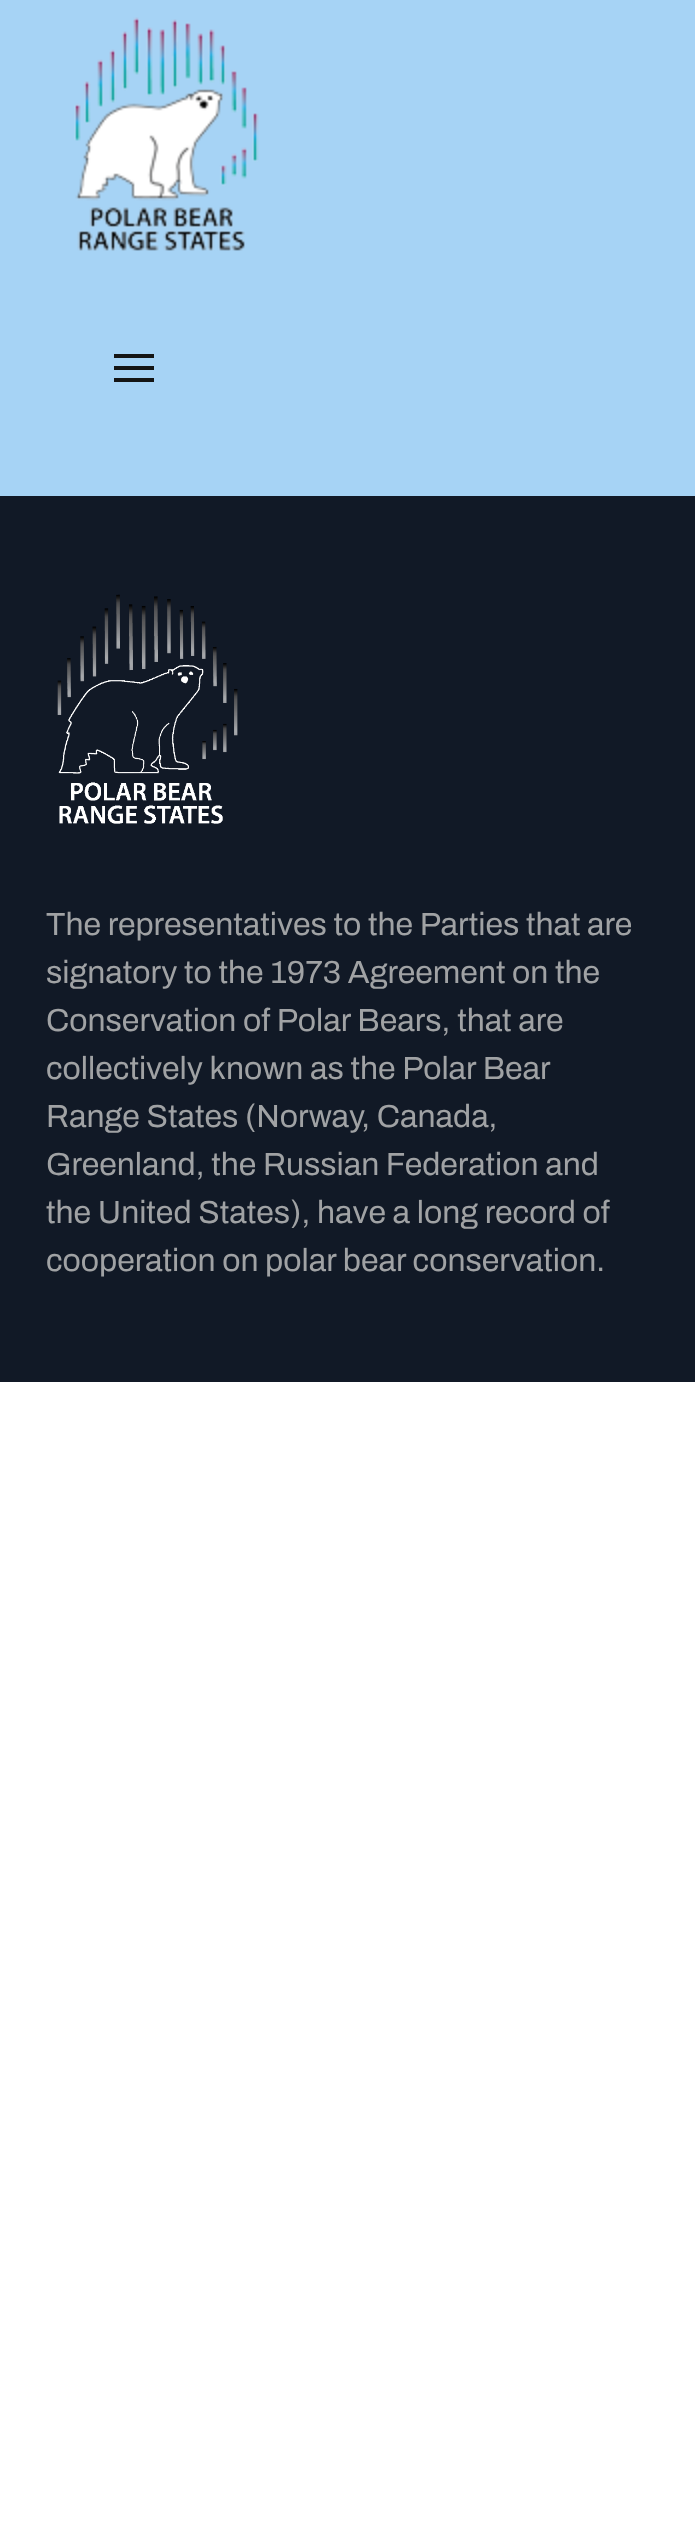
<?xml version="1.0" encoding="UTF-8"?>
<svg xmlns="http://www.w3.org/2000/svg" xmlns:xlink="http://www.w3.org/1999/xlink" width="695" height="2529">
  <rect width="100%" height="100%" fill="#ffffff" />
  <rect width="695" height="496" fill="#a6d3f5" />
  <image x="74" y="17" width="185" height="234" xlink:href="image1.png" />
  <rect x="114" y="354" width="40" height="4" fill="#141515" />
  <rect x="114" y="366" width="40" height="4" fill="#141515" />
  <rect x="114" y="378" width="40" height="4" fill="#141515" />
  <rect y="496" width="695" height="886" fill="#111926" />
  <image x="57" y="594" width="181" height="230" xlink:href="image2.png" />
  <text x="46" y="935" style="font-family: Archivo; font-size: 32px; fill: #a0a2a4">The representatives to the Parties that are</text>
  <text x="46" y="983" style="font-family: Archivo; font-size: 32px; fill: #a0a2a4">signatory to the 1973 Agreement on the</text>
  <text x="46" y="1031" style="font-family: Archivo; font-size: 32px; fill: #a0a2a4">Conservation of Polar Bears, that are</text>
  <text x="46" y="1079" style="font-family: Archivo; font-size: 32px; fill: #a0a2a4">collectively known</text>
  <text x="310" y="1079" style="font-family: Archivo; font-size: 32px; fill: #a0a2a4">as the Polar Bear</text>
  <text x="46" y="1127" style="font-family: Archivo; font-size: 32px; fill: #a0a2a4">Range States (Norway, Canada,</text>
  <text x="46" y="1175" style="font-family: Archivo; font-size: 32px; fill: #a0a2a4">Greenland, the Russian Federation and</text>
  <text x="46" y="1223" style="font-family: Archivo; font-size: 32px; fill: #a0a2a4">the United States), have a long record of</text>
  <text x="46" y="1271" style="font-family: Archivo; font-size: 32px; fill: #a0a2a4">cooperation on polar bear conservation.</text>
</svg>
